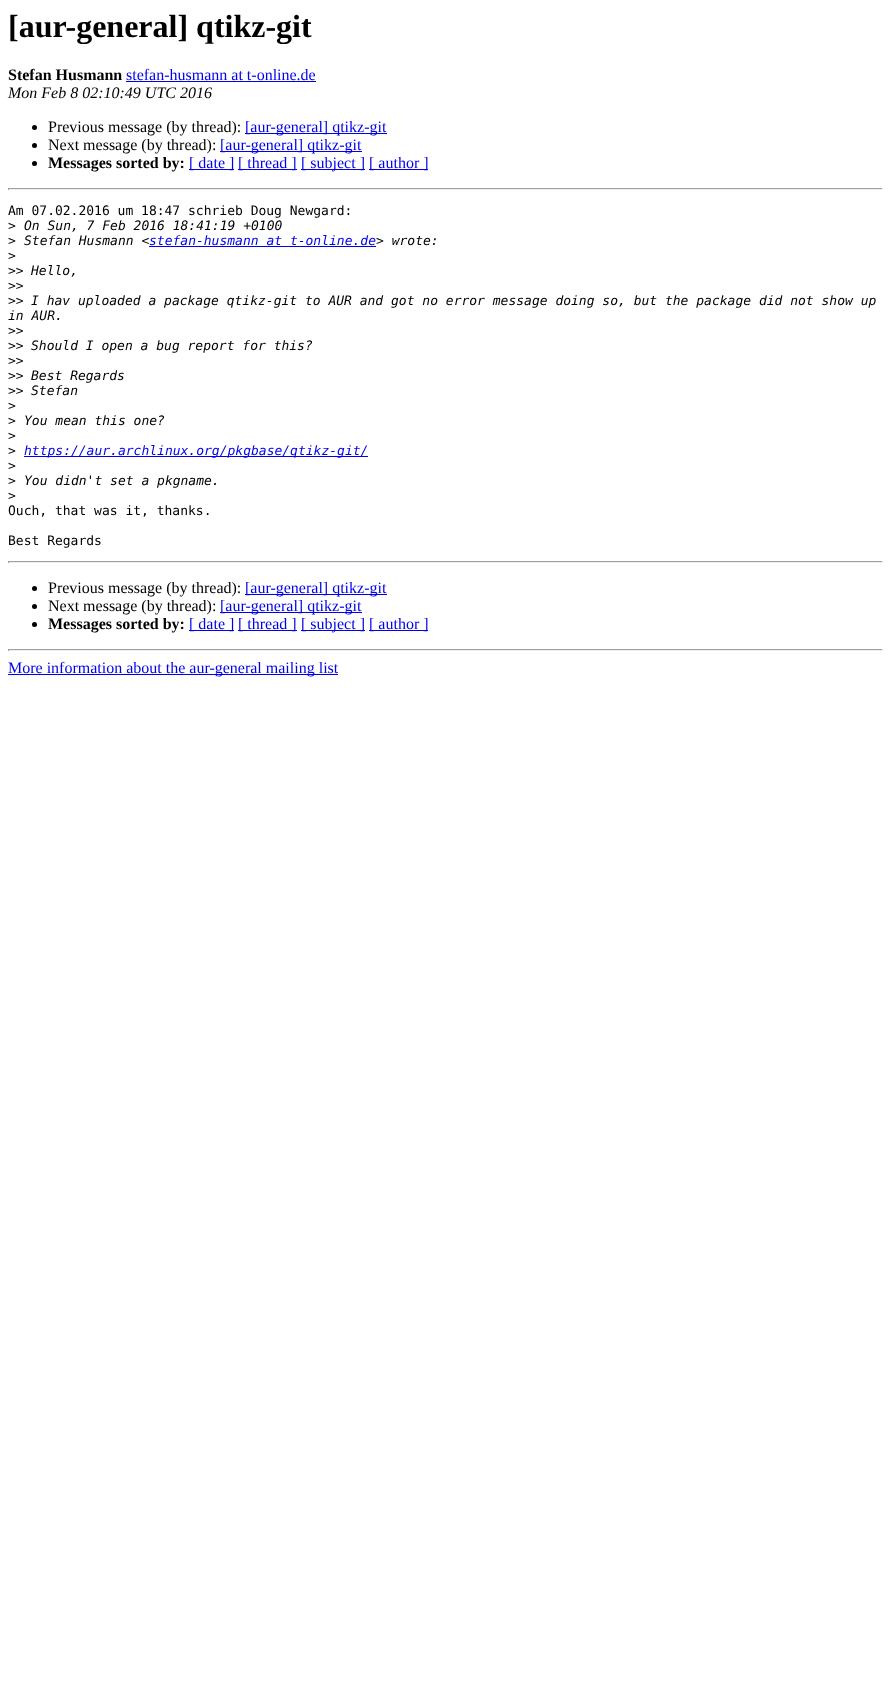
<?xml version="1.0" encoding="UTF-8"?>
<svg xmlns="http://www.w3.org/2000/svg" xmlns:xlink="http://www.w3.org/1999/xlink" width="891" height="1704">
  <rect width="100%" height="100%" fill="#ffffff" />
  <rect x="126" y="81" width="190" height="1" fill="#0000ee" />
  <circle cx="34.5" cy="127.5" r="2.5" fill="#000000" />
  <rect x="245" y="133" width="142" height="1" fill="#0000ee" />
  <circle cx="34.5" cy="145.5" r="2.5" fill="#000000" />
  <rect x="220" y="151" width="142" height="1" fill="#0000ee" />
  <circle cx="34.5" cy="163.5" r="2.5" fill="#000000" />
  <rect x="189" y="169" width="45" height="1" fill="#0000ee" />
  <rect x="238" y="169" width="59" height="1" fill="#0000ee" />
  <rect x="301" y="169" width="64" height="1" fill="#0000ee" />
  <rect x="369" y="169" width="59" height="1" fill="#0000ee" />
  <rect x="8" y="188" width="875" height="1" fill="#9f9f9f" />
  <rect x="882" y="188" width="1" height="2" fill="#eeeeee" />
  <rect x="8" y="189" width="875" height="1" fill="#eeeeee" />
  <rect x="8" y="188" width="1" height="2" fill="#9f9f9f" />
  <rect x="149" y="246" width="227" height="1" fill="#0000ee" />
  <rect x="24" y="456" width="344" height="1" fill="#0000ee" />
  <rect x="8" y="561" width="875" height="1" fill="#9f9f9f" />
  <rect x="882" y="561" width="1" height="2" fill="#eeeeee" />
  <rect x="8" y="562" width="875" height="1" fill="#eeeeee" />
  <rect x="8" y="561" width="1" height="2" fill="#9f9f9f" />
  <circle cx="34.5" cy="588.5" r="2.5" fill="#000000" />
  <rect x="245" y="594" width="142" height="1" fill="#0000ee" />
  <circle cx="34.5" cy="606.5" r="2.5" fill="#000000" />
  <rect x="220" y="612" width="142" height="1" fill="#0000ee" />
  <circle cx="34.5" cy="624.5" r="2.5" fill="#000000" />
  <rect x="189" y="630" width="45" height="1" fill="#0000ee" />
  <rect x="238" y="630" width="59" height="1" fill="#0000ee" />
  <rect x="301" y="630" width="64" height="1" fill="#0000ee" />
  <rect x="369" y="630" width="59" height="1" fill="#0000ee" />
  <rect x="8" y="649" width="875" height="1" fill="#9f9f9f" />
  <rect x="882" y="649" width="1" height="2" fill="#eeeeee" />
  <rect x="8" y="650" width="875" height="1" fill="#eeeeee" />
  <rect x="8" y="649" width="1" height="2" fill="#9f9f9f" />
  <rect x="8" y="674" width="330" height="1" fill="#0000ee" />
  <text x="8" y="37" style="font-family: Liberation Serif; font-size: 32px; font-weight: bold; fill: #000000">[aur-general] qtikz-git</text>
  <text x="8" y="80" style="font-family: Liberation Serif; font-size: 16px; font-weight: bold; fill: #000000">Stefan Husmann</text>
  <text x="126" y="80" style="font-family: Liberation Serif; font-size: 16px; fill: #0000ee">stefan-husmann at t-online.de</text>
  <text x="8" y="98" style="font-family: Liberation Serif; font-size: 16px; font-style: italic; fill: #000000">Mon Feb 8 02:10:49 UTC 2016</text>
  <text x="48" y="132" style="font-family: Liberation Serif; font-size: 16px; fill: #000000">Previous message (by thread):</text>
  <text x="245" y="132" style="font-family: Liberation Serif; font-size: 16px; fill: #0000ee">[aur-general] qtikz-git</text>
  <text x="48" y="150" style="font-family: Liberation Serif; font-size: 16px; fill: #000000">Next message (by thread):</text>
  <text x="220" y="150" style="font-family: Liberation Serif; font-size: 16px; fill: #0000ee">[aur-general] qtikz-git</text>
  <text x="48" y="168" style="font-family: Liberation Serif; font-size: 16px; font-weight: bold; fill: #000000">Messages sorted by:</text>
  <text x="189" y="168" style="font-family: Liberation Serif; font-size: 16px; fill: #0000ee">[ date ]</text>
  <text x="238" y="168" style="font-family: Liberation Serif; font-size: 16px; fill: #0000ee">[ thread ]</text>
  <text x="301" y="168" style="font-family: Liberation Serif; font-size: 16px; fill: #0000ee">[ subject ]</text>
  <text x="369" y="168" style="font-family: Liberation Serif; font-size: 16px; fill: #0000ee">[ author ]</text>
  <text x="8" y="215" style="font-family: DejaVu Sans Mono; font-size: 13px; fill: #000000">Am 07.02.2016 um 18:47 schrieb Doug Newgard:</text>
  <text x="8" y="230" style="font-family: DejaVu Sans Mono; font-size: 13px; fill: #000000">&gt;</text>
  <text x="24" y="230" style="font-family: DejaVu Sans Mono; font-size: 13px; font-style: italic; fill: #000000">On Sun, 7 Feb 2016 18:41:19 +0100</text>
  <text x="8" y="245" style="font-family: DejaVu Sans Mono; font-size: 13px; fill: #000000">&gt;</text>
  <text x="24" y="245" style="font-family: DejaVu Sans Mono; font-size: 13px; font-style: italic; fill: #000000">Stefan Husmann &lt;</text>
  <text x="149" y="245" style="font-family: DejaVu Sans Mono; font-size: 13px; font-style: italic; fill: #0000ee">stefan-husmann at t-online.de</text>
  <text x="376" y="245" style="font-family: DejaVu Sans Mono; font-size: 13px; font-style: italic; fill: #000000">&gt; wrote:</text>
  <text x="8" y="260" style="font-family: DejaVu Sans Mono; font-size: 13px; fill: #000000">&gt;</text>
  <text x="8" y="275" style="font-family: DejaVu Sans Mono; font-size: 13px; fill: #000000">&gt;&gt;</text>
  <text x="31" y="275" style="font-family: DejaVu Sans Mono; font-size: 13px; font-style: italic; fill: #000000">Hello,</text>
  <text x="8" y="290" style="font-family: DejaVu Sans Mono; font-size: 13px; fill: #000000">&gt;&gt;</text>
  <text x="8" y="305" style="font-family: DejaVu Sans Mono; font-size: 13px; fill: #000000">&gt;&gt;</text>
  <text x="31" y="305" style="font-family: DejaVu Sans Mono; font-size: 13px; font-style: italic; fill: #000000">I hav uploaded a package qtikz-git to AUR and got no error message doing so, but the package did not show up</text>
  <text x="8" y="320" style="font-family: DejaVu Sans Mono; font-size: 13px; font-style: italic; fill: #000000">in AUR.</text>
  <text x="8" y="335" style="font-family: DejaVu Sans Mono; font-size: 13px; fill: #000000">&gt;&gt;</text>
  <text x="8" y="350" style="font-family: DejaVu Sans Mono; font-size: 13px; fill: #000000">&gt;&gt;</text>
  <text x="31" y="350" style="font-family: DejaVu Sans Mono; font-size: 13px; font-style: italic; fill: #000000">Should I open a bug report for this?</text>
  <text x="8" y="365" style="font-family: DejaVu Sans Mono; font-size: 13px; fill: #000000">&gt;&gt;</text>
  <text x="8" y="380" style="font-family: DejaVu Sans Mono; font-size: 13px; fill: #000000">&gt;&gt;</text>
  <text x="31" y="380" style="font-family: DejaVu Sans Mono; font-size: 13px; font-style: italic; fill: #000000">Best Regards</text>
  <text x="8" y="395" style="font-family: DejaVu Sans Mono; font-size: 13px; fill: #000000">&gt;&gt;</text>
  <text x="31" y="395" style="font-family: DejaVu Sans Mono; font-size: 13px; font-style: italic; fill: #000000">Stefan</text>
  <text x="8" y="410" style="font-family: DejaVu Sans Mono; font-size: 13px; fill: #000000">&gt;</text>
  <text x="8" y="425" style="font-family: DejaVu Sans Mono; font-size: 13px; fill: #000000">&gt;</text>
  <text x="24" y="425" style="font-family: DejaVu Sans Mono; font-size: 13px; font-style: italic; fill: #000000">You mean this one?</text>
  <text x="8" y="440" style="font-family: DejaVu Sans Mono; font-size: 13px; fill: #000000">&gt;</text>
  <text x="8" y="455" style="font-family: DejaVu Sans Mono; font-size: 13px; fill: #000000">&gt;</text>
  <text x="24" y="455" style="font-family: DejaVu Sans Mono; font-size: 13px; font-style: italic; fill: #0000ee">https://aur.archlinux.org/pkgbase/qtikz-git/</text>
  <text x="8" y="470" style="font-family: DejaVu Sans Mono; font-size: 13px; fill: #000000">&gt;</text>
  <text x="8" y="485" style="font-family: DejaVu Sans Mono; font-size: 13px; fill: #000000">&gt;</text>
  <text x="24" y="485" style="font-family: DejaVu Sans Mono; font-size: 13px; font-style: italic; fill: #000000">You didn't set a pkgname.</text>
  <text x="8" y="500" style="font-family: DejaVu Sans Mono; font-size: 13px; fill: #000000">&gt;</text>
  <text x="8" y="515" style="font-family: DejaVu Sans Mono; font-size: 13px; fill: #000000">Ouch, that was it, thanks.</text>
  <text x="8" y="545" style="font-family: DejaVu Sans Mono; font-size: 13px; fill: #000000">Best Regards</text>
  <text x="48" y="593" style="font-family: Liberation Serif; font-size: 16px; fill: #000000">Previous message (by thread):</text>
  <text x="245" y="593" style="font-family: Liberation Serif; font-size: 16px; fill: #0000ee">[aur-general] qtikz-git</text>
  <text x="48" y="611" style="font-family: Liberation Serif; font-size: 16px; fill: #000000">Next message (by thread):</text>
  <text x="220" y="611" style="font-family: Liberation Serif; font-size: 16px; fill: #0000ee">[aur-general] qtikz-git</text>
  <text x="48" y="629" style="font-family: Liberation Serif; font-size: 16px; font-weight: bold; fill: #000000">Messages sorted by:</text>
  <text x="189" y="629" style="font-family: Liberation Serif; font-size: 16px; fill: #0000ee">[ date ]</text>
  <text x="238" y="629" style="font-family: Liberation Serif; font-size: 16px; fill: #0000ee">[ thread ]</text>
  <text x="301" y="629" style="font-family: Liberation Serif; font-size: 16px; fill: #0000ee">[ subject ]</text>
  <text x="369" y="629" style="font-family: Liberation Serif; font-size: 16px; fill: #0000ee">[ author ]</text>
  <text x="8" y="673" style="font-family: Liberation Serif; font-size: 16px; fill: #0000ee">More information about the aur-general mailing list</text>
</svg>
